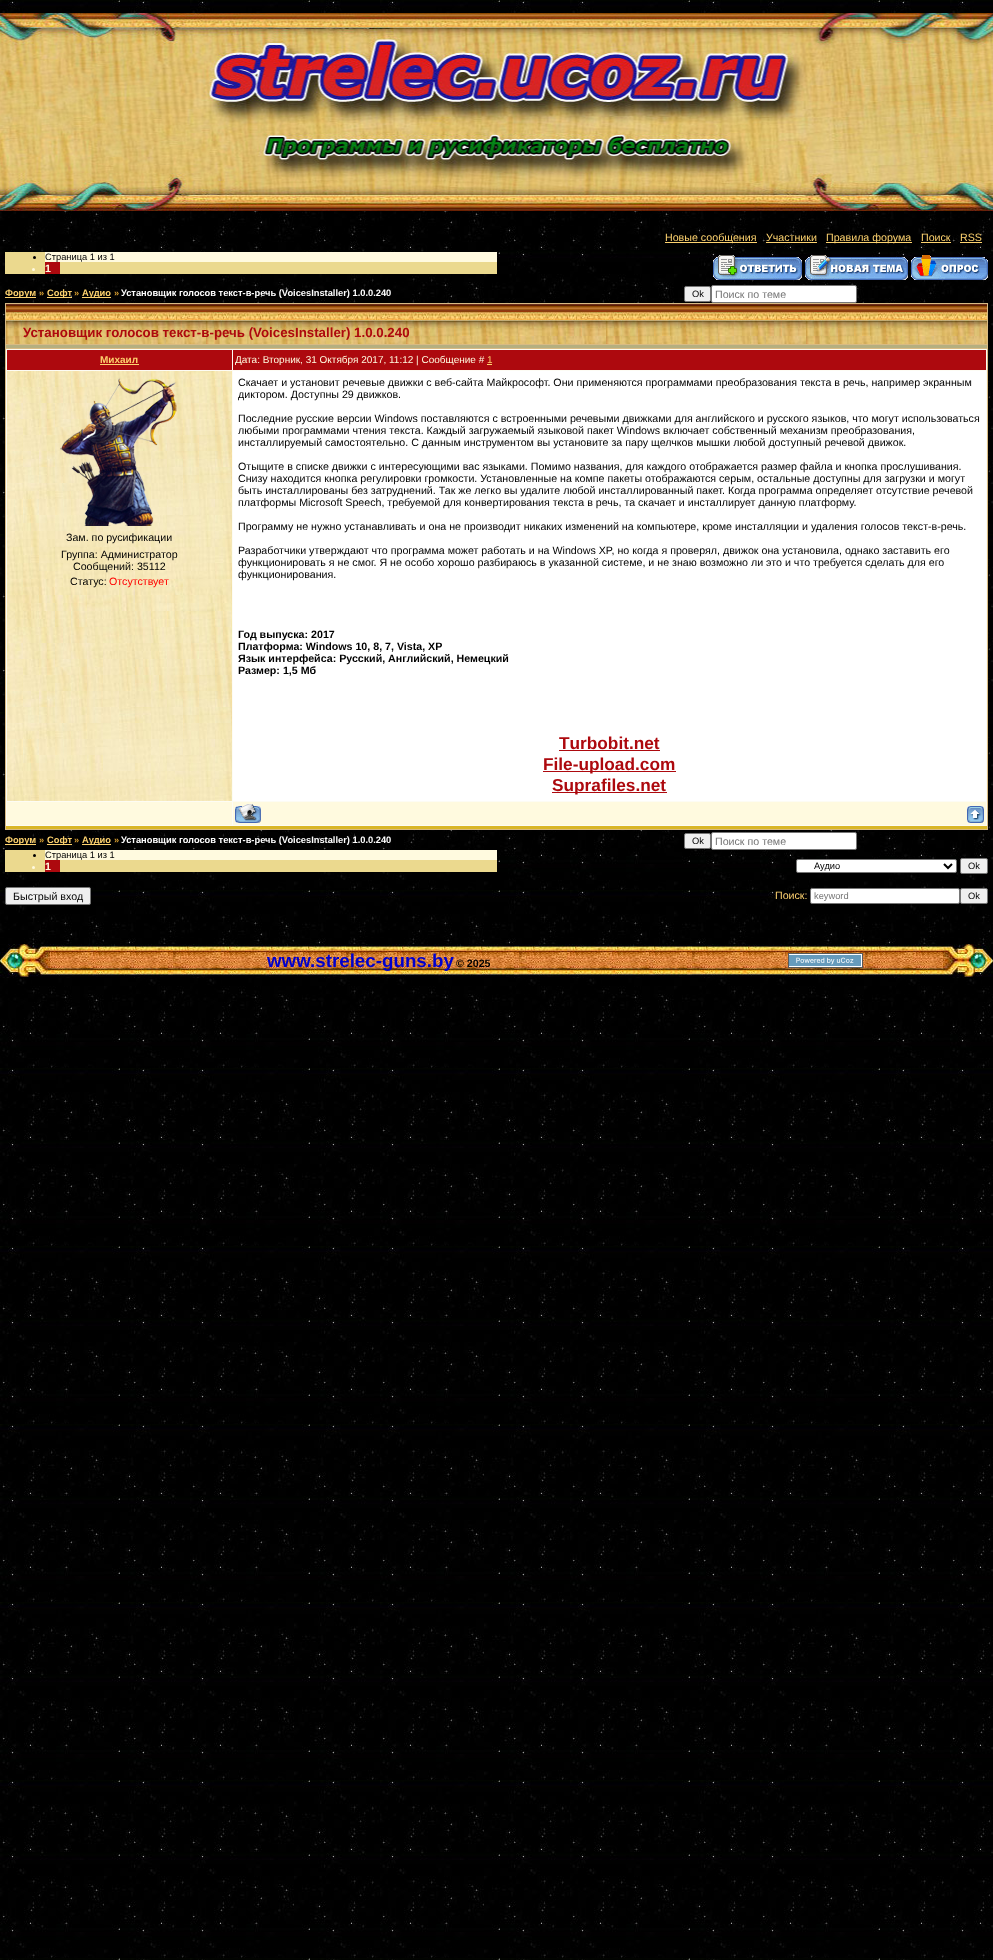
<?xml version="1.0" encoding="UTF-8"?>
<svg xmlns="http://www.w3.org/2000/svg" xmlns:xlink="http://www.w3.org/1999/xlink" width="993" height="1960">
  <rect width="100%" height="100%" fill="#ffffff" />
  <image x="0" y="0" width="993" height="1960" xlink:href="image1.png" />
  <image x="0" y="13" width="993" height="198" xlink:href="image2.png" />
  <rect x="665" y="242" width="92" height="1" fill="#fed36f" />
  <rect x="766" y="242" width="51" height="1" fill="#fed36f" />
  <rect x="826" y="242" width="86" height="1" fill="#fed36f" />
  <rect x="921" y="242" width="30" height="1" fill="#fed36f" />
  <rect x="960" y="242" width="22" height="1" fill="#fed36f" />
  <rect x="5" y="252" width="492" height="22" fill="#ebd98e" />
  <rect x="45" y="252" width="452" height="10" fill="#fffadf" />
  <circle cx="34.5" cy="257.5" r="1.5" fill="#000000" />
  <rect x="45" y="262" width="15" height="12" fill="#ad090e" />
  <circle cx="33.5" cy="269.5" r="1.5" fill="#fffadf" />
  <image x="713" y="255" width="89" height="25" xlink:href="image3.png" />
  <image x="805" y="255" width="103" height="25" xlink:href="image4.png" />
  <image x="911" y="255" width="77" height="25" xlink:href="image5.png" />
  <rect x="5" y="297" width="31" height="1" fill="#fed36f" />
  <rect x="47" y="297" width="25" height="1" fill="#fed36f" />
  <rect x="82" y="297" width="29" height="1" fill="#fed36f" />
  <rect x="684.5" y="286.5" width="26" height="15" rx="1.5" fill="#efefef" stroke="#767676" />
  <rect x="711.5" y="285.5" width="145" height="17" rx="1.5" fill="#ffffff" stroke="#767676" />
  <rect x="5" y="303" width="983" height="527" fill="#d8ba83" />
  <image x="6" y="304" width="981" height="40" xlink:href="image6.png" />
  <rect x="6" y="345" width="981" height="3" fill="#b5af80" />
  <rect x="6" y="349" width="981" height="477" fill="#fdfcf4" />
  <rect x="6" y="826" width="981" height="3" fill="#d9b627" />
  <rect x="7" y="350" width="225" height="20" fill="#ad090e" />
  <rect x="100" y="364" width="39" height="1" fill="#fed36f" />
  <rect x="233" y="350" width="753" height="20" fill="#ad090e" />
  <rect x="487" y="364" width="5" height="1" fill="#fed36f" />
  <image x="7" y="371" width="225" height="430" xlink:href="image7.png" />
  <image x="60" y="378" width="117" height="148" xlink:href="image8.png" />
  <rect x="233" y="371" width="753" height="430" fill="#ffffff" />
  <rect x="559" y="750" width="101" height="1" fill="#ad090e" />
  <rect x="543" y="771" width="133" height="1" fill="#ad090e" />
  <rect x="552" y="792" width="115" height="1" fill="#ad090e" />
  <rect x="7" y="802" width="225" height="23" fill="#fffadf" />
  <rect x="233" y="802" width="753" height="23" fill="#fffadf" />
  <image x="235" y="804" width="26" height="19" xlink:href="image9.png" />
  <image x="967" y="806" width="17" height="17" xlink:href="image10.png" />
  <rect x="5" y="844" width="31" height="1" fill="#fed36f" />
  <rect x="47" y="844" width="25" height="1" fill="#fed36f" />
  <rect x="82" y="844" width="29" height="1" fill="#fed36f" />
  <rect x="684.5" y="833.5" width="26" height="15" rx="1.5" fill="#efefef" stroke="#767676" />
  <rect x="711.5" y="832.5" width="145" height="17" rx="1.5" fill="#ffffff" stroke="#767676" />
  <rect x="5" y="850" width="492" height="22" fill="#ebd98e" />
  <rect x="45" y="850" width="452" height="10" fill="#fffadf" />
  <circle cx="34.5" cy="855.5" r="1.5" fill="#000000" />
  <rect x="45" y="860" width="15" height="12" fill="#ad090e" />
  <circle cx="33.5" cy="867.5" r="1.5" fill="#fffadf" />
  <rect x="796.5" y="859.5" width="160" height="13" rx="1.5" fill="#ffffff" stroke="#767676" />
  <path d="M 944 864 l 4 4 l 4 -4" fill="none" stroke="#000000" stroke-width="2" />
  <rect x="960.5" y="858.5" width="27" height="15" rx="1.5" fill="#efefef" stroke="#767676" />
  <rect x="5.5" y="887.5" width="85" height="17" rx="1.5" fill="#efefef" stroke="#767676" />
  <rect x="810.5" y="888.5" width="149" height="15" rx="1.5" fill="#ffffff" stroke="#767676" />
  <rect x="960.5" y="888.5" width="27" height="15" rx="1.5" fill="#efefef" stroke="#767676" />
  <image x="50" y="944" width="893" height="33" xlink:href="image11.png" />
  <image x="0" y="944" width="50" height="33" xlink:href="image12.png" />
  <image x="788" y="953" width="75" height="15" xlink:href="image13.png" />
  <image x="943" y="944" width="50" height="33" xlink:href="image14.png" />
  <text x="665" y="241" style="font-family: Liberation Sans; font-size: 10.67px; fill: #fed36f">Новые сообщения</text>
  <text x="766" y="241" style="font-family: Liberation Sans; font-size: 10.67px; fill: #fed36f">Участники</text>
  <text x="826" y="241" style="font-family: Liberation Sans; font-size: 10.67px; fill: #fed36f">Правила форума</text>
  <text x="921" y="241" style="font-family: Liberation Sans; font-size: 10.67px; fill: #fed36f">Поиск</text>
  <text x="960" y="241" style="font-family: Liberation Sans; font-size: 10.67px; fill: #fed36f">RSS</text>
  <text x="45" y="260" style="font-family: Liberation Sans; font-size: 9.3px; fill: #000000">Страница 1 из 1</text>
  <text x="45" y="272" style="font-family: Liberation Sans; font-size: 10.67px; font-weight: bold; fill: #fffadf">1</text>
  <text x="5" y="296" style="font-family: Liberation Sans; font-size: 9.3px; font-weight: bold; fill: #fed36f">Форум</text>
  <text x="39" y="296" style="font-family: Liberation Sans; font-size: 9.3px; font-weight: bold; fill: #d69d30">»</text>
  <text x="47" y="296" style="font-family: Liberation Sans; font-size: 9.3px; font-weight: bold; fill: #fed36f">Софт</text>
  <text x="74" y="296" style="font-family: Liberation Sans; font-size: 9.3px; font-weight: bold; fill: #d69d30">»</text>
  <text x="82" y="296" style="font-family: Liberation Sans; font-size: 9.3px; font-weight: bold; fill: #fed36f">Аудио</text>
  <text x="114" y="296" style="font-family: Liberation Sans; font-size: 9.3px; font-weight: bold; fill: #d69d30">»</text>
  <text x="121" y="296" style="font-family: Liberation Sans; font-size: 9.3px; font-weight: bold; fill: #ffffff">Установщик голосов текст-в-речь (VoicesInstaller) 1.0.0.240</text>
  <text x="692" y="297" style="font-family: Liberation Sans; font-size: 9.3px; fill: #000000">Ok</text>
  <text x="715" y="298" style="font-family: Liberation Sans; font-size: 10.67px; fill: #757575">Поиск по теме</text>
  <text x="23" y="337" style="font-family: Liberation Sans; font-size: 13.3px; font-weight: bold; fill: #ad090e">Установщик голосов текст-в-речь (VoicesInstaller) 1.0.0.240</text>
  <text x="100" y="363" style="font-family: Liberation Sans; font-size: 10px; font-weight: bold; fill: #fed36f">Михаил</text>
  <text x="235" y="363" style="font-family: Liberation Sans; font-size: 10px; fill: #fffadf">Дата: Вторник, 31 Октября 2017, 11:12 | Сообщение #</text>
  <text x="487" y="363" style="font-family: Liberation Sans; font-size: 10px; fill: #fed36f">1</text>
  <text x="66" y="541" style="font-family: Liberation Sans; font-size: 10.67px; fill: #000000">Зам. по русификации</text>
  <text x="61" y="558" style="font-family: Liberation Sans; font-size: 10.67px; fill: #000000">Группа: Администратор</text>
  <text x="73" y="570" style="font-family: Liberation Sans; font-size: 10.67px; fill: #000000">Сообщений: 35112</text>
  <text x="70" y="585" style="font-family: Liberation Sans; font-size: 10.67px; fill: #000000">Статус:</text>
  <text x="109" y="585" style="font-family: Liberation Sans; font-size: 10.67px; fill: #ff0000">Отсутствует</text>
  <text x="238" y="386" style="font-family: Liberation Sans; font-size: 10.67px; fill: #000000">Скачает и установит речевые движки с веб-сайта Майкрософт. Они применяются программами преобразования текста в речь, например экранным</text>
  <text x="238" y="398" style="font-family: Liberation Sans; font-size: 10.67px; fill: #000000">диктором. Доступны 29 движков.</text>
  <text x="238" y="422" style="font-family: Liberation Sans; font-size: 10.67px; fill: #000000">Последние русские версии Windows поставляются с встроенными речевыми движками для английского и русского языков, что могут использоваться</text>
  <text x="238" y="434" style="font-family: Liberation Sans; font-size: 10.67px; fill: #000000">любыми программами чтения текста. Каждый загружаемый языковой пакет Windows включает собственный механизм преобразования,</text>
  <text x="238" y="446" style="font-family: Liberation Sans; font-size: 10.67px; fill: #000000">инсталлируемый самостоятельно. С данным инструментом вы установите за пару щелчков мышки любой доступный речевой движок.</text>
  <text x="238" y="470" style="font-family: Liberation Sans; font-size: 10.67px; fill: #000000">Отыщите в списке движки с интересующими вас языками. Помимо названия, для каждого отображается размер файла и кнопка прослушивания.</text>
  <text x="238" y="482" style="font-family: Liberation Sans; font-size: 10.67px; fill: #000000">Снизу находится кнопка регулировки громкости. Установленные на компе пакеты отображаются серым, остальные доступны для загрузки и могут</text>
  <text x="238" y="494" style="font-family: Liberation Sans; font-size: 10.67px; fill: #000000">быть инсталлированы без затруднений. Так же легко вы удалите любой инсталлированный пакет. Когда программа определяет отсутствие речевой</text>
  <text x="238" y="506" style="font-family: Liberation Sans; font-size: 10.67px; fill: #000000">платформы Microsoft Speech, требуемой для конвертирования текста в речь, та скачает и инсталлирует данную платформу.</text>
  <text x="238" y="530" style="font-family: Liberation Sans; font-size: 10.67px; fill: #000000">Программу не нужно устанавливать и она не производит никаких изменений на компьютере, кроме инсталляции и удаления голосов текст-в-речь.</text>
  <text x="238" y="554" style="font-family: Liberation Sans; font-size: 10.67px; fill: #000000">Разработчики утверждают что программа может работать и на Windows XP, но когда я проверял, движок она установила, однако заставить его</text>
  <text x="238" y="566" style="font-family: Liberation Sans; font-size: 10.67px; fill: #000000">функционировать я не смог. Я не особо хорошо разбираюсь в указанной системе, и не знаю возможно ли это и что требуется сделать для его</text>
  <text x="238" y="578" style="font-family: Liberation Sans; font-size: 10.67px; fill: #000000">функционирования.</text>
  <text x="238" y="638" style="font-family: Liberation Sans; font-size: 10.67px; font-weight: bold; fill: #000000">Год выпуска: 2017</text>
  <text x="238" y="650" style="font-family: Liberation Sans; font-size: 10.67px; font-weight: bold; fill: #000000">Платформа: Windows 10, 8, 7, Vista, XP</text>
  <text x="238" y="662" style="font-family: Liberation Sans; font-size: 10.67px; font-weight: bold; fill: #000000">Язык интерфейса: Русский, Английский, Немецкий</text>
  <text x="238" y="674" style="font-family: Liberation Sans; font-size: 10.67px; font-weight: bold; fill: #000000">Размер: 1,5 Мб</text>
  <text x="559" y="749" style="font-family: Liberation Sans; font-size: 17.25px; font-weight: bold; fill: #ad090e">Тurbobit.net</text>
  <text x="543" y="770" style="font-family: Liberation Sans; font-size: 17.25px; font-weight: bold; fill: #ad090e">File-upload.com</text>
  <text x="552" y="791" style="font-family: Liberation Sans; font-size: 17.25px; font-weight: bold; fill: #ad090e">Suprafiles.net</text>
  <text x="5" y="843" style="font-family: Liberation Sans; font-size: 9.3px; font-weight: bold; fill: #fed36f">Форум</text>
  <text x="39" y="843" style="font-family: Liberation Sans; font-size: 9.3px; font-weight: bold; fill: #d69d30">»</text>
  <text x="47" y="843" style="font-family: Liberation Sans; font-size: 9.3px; font-weight: bold; fill: #fed36f">Софт</text>
  <text x="74" y="843" style="font-family: Liberation Sans; font-size: 9.3px; font-weight: bold; fill: #d69d30">»</text>
  <text x="82" y="843" style="font-family: Liberation Sans; font-size: 9.3px; font-weight: bold; fill: #fed36f">Аудио</text>
  <text x="114" y="843" style="font-family: Liberation Sans; font-size: 9.3px; font-weight: bold; fill: #d69d30">»</text>
  <text x="121" y="843" style="font-family: Liberation Sans; font-size: 9.3px; font-weight: bold; fill: #ffffff">Установщик голосов текст-в-речь (VoicesInstaller) 1.0.0.240</text>
  <text x="692" y="844" style="font-family: Liberation Sans; font-size: 9.3px; fill: #000000">Ok</text>
  <text x="715" y="845" style="font-family: Liberation Sans; font-size: 10.67px; fill: #757575">Поиск по теме</text>
  <text x="45" y="858" style="font-family: Liberation Sans; font-size: 9.3px; fill: #000000">Страница 1 из 1</text>
  <text x="45" y="870" style="font-family: Liberation Sans; font-size: 10.67px; font-weight: bold; fill: #fffadf">1</text>
  <text x="814" y="869" style="font-family: Liberation Sans; font-size: 9.3px; fill: #000000">Аудио</text>
  <text x="968" y="869" style="font-family: Liberation Sans; font-size: 9.3px; fill: #000000">Ok</text>
  <text x="13" y="900" style="font-family: Liberation Sans; font-size: 10.67px; fill: #000000">Быстрый вход</text>
  <text x="775" y="899" style="font-family: Liberation Sans; font-size: 10.67px; fill: #fed36f">Поиск:</text>
  <text x="814" y="899" style="font-family: Liberation Sans; font-size: 9.3px; fill: #757575">keyword</text>
  <text x="968" y="899" style="font-family: Liberation Sans; font-size: 9.3px; fill: #000000">Ok</text>
  <text x="267" y="967" style="font-family: Liberation Sans; font-size: 18.75px; font-weight: bold; fill: #0000cd">www.strelec-guns.by</text>
  <text x="456" y="967" style="font-family: Liberation Sans; font-size: 10.67px; font-weight: bold; fill: #000000">© 2025</text>
</svg>
